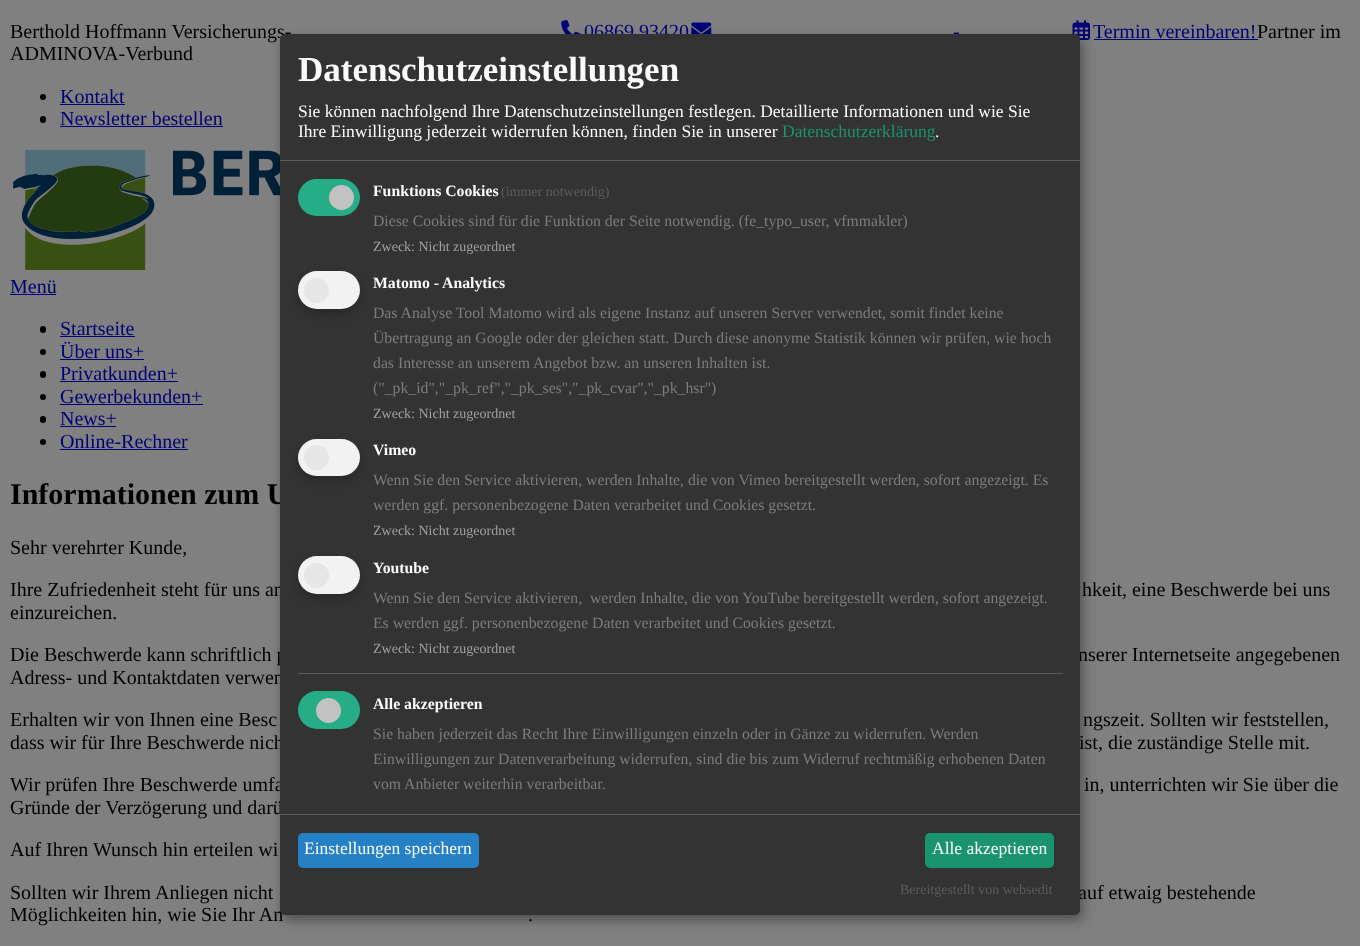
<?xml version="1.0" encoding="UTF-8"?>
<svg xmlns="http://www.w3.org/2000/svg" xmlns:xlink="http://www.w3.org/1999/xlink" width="1360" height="946">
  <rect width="100%" height="100%" fill="#808080" />
  <image x="561" y="20" width="20" height="14" xlink:href="image1.png" />
  <image x="691" y="22" width="21" height="12" xlink:href="image2.png" />
  <image x="1072" y="20" width="18" height="20" xlink:href="image3.png" />
  <rect x="1094" y="39" width="164" height="1" fill="#000077" />
  <circle cx="43" cy="97" r="3" fill="#000000" />
  <rect x="60" y="104" width="65" height="1" fill="#000077" />
  <rect x="40" y="116" width="6" height="7" rx="3" fill="#000000" />
  <rect x="60" y="126" width="163" height="1" fill="#000077" />
  <image x="13" y="150" width="267" height="120" xlink:href="image4.png" />
  <rect x="10" y="294" width="46" height="1" fill="#000077" />
  <rect x="40" y="326" width="6" height="7" rx="3" fill="#000000" />
  <rect x="60" y="336" width="75" height="1" fill="#000077" />
  <circle cx="43" cy="352" r="3" fill="#000000" />
  <rect x="60" y="359" width="84" height="1" fill="#000077" />
  <rect x="40" y="371" width="6" height="7" rx="3" fill="#000000" />
  <rect x="60" y="381" width="118" height="1" fill="#000077" />
  <circle cx="43" cy="397" r="3" fill="#000000" />
  <rect x="60" y="404" width="143" height="1" fill="#000077" />
  <rect x="40" y="416" width="6" height="7" rx="3" fill="#000000" />
  <rect x="60" y="426" width="56" height="1" fill="#000077" />
  <circle cx="43" cy="442" r="3" fill="#000000" />
  <rect x="60" y="449" width="128" height="1" fill="#000077" />
  <rect x="286" y="40" width="800" height="881" rx="5" fill="#000000" fill-opacity="0.19" filter="blur(6px)" />
  <rect x="280" y="39" width="800" height="881" rx="5" fill="#000000" fill-opacity="0.2" filter="blur(4px)" />
  <text x="10" y="38" style="font-family: Liberation Serif; font-size: 20px; fill: #000000">Berthold Hoffmann Versicherungs-</text>
  <text x="584" y="38" style="font-family: Liberation Serif; font-size: 20px; fill: #000077">06869 93420</text>
  <text x="953" y="38" style="font-family: Liberation Serif; font-size: 20px; fill: #000077">-</text>
  <text x="1093" y="38" style="font-family: Liberation Serif; font-size: 20px; fill: #000077">Termin vereinbaren!</text>
  <text x="1257" y="38" style="font-family: Liberation Serif; font-size: 20px; fill: #000000">Partner im</text>
  <text x="10" y="60" style="font-family: Liberation Serif; font-size: 20px; fill: #000000">ADMINOVA-Verbund</text>
  <text x="60" y="103" style="font-family: Liberation Serif; font-size: 20px; fill: #000077">Kontakt</text>
  <text x="60" y="125" style="font-family: Liberation Serif; font-size: 20px; fill: #000077">Newsletter bestellen</text>
  <text x="10" y="293" style="font-family: Liberation Serif; font-size: 20px; fill: #000077">Menü</text>
  <text x="60" y="335" style="font-family: Liberation Serif; font-size: 20px; fill: #000077">Startseite</text>
  <text x="60" y="358" style="font-family: Liberation Serif; font-size: 20px; fill: #000077">Über uns+</text>
  <text x="60" y="380" style="font-family: Liberation Serif; font-size: 20px; fill: #000077">Privatkunden+</text>
  <text x="60" y="403" style="font-family: Liberation Serif; font-size: 20px; fill: #000077">Gewerbekunden+</text>
  <text x="60" y="425" style="font-family: Liberation Serif; font-size: 20px; fill: #000077">News+</text>
  <text x="60" y="448" style="font-family: Liberation Serif; font-size: 20px; fill: #000077">Online-Rechner</text>
  <text x="10" y="504" style="font-family: Liberation Serif; font-size: 30px; font-weight: bold; fill: #000000">Informationen zum U</text>
  <text x="10" y="554" style="font-family: Liberation Serif; font-size: 20px; fill: #000000">Sehr verehrter Kunde,</text>
  <text x="10" y="596" style="font-family: Liberation Serif; font-size: 20px; fill: #000000">Ihre Zufriedenheit steht für uns an</text>
  <text x="1082" y="596" style="font-family: Liberation Serif; font-size: 20px; fill: #000000">hkeit, eine Beschwerde bei uns</text>
  <text x="10" y="619" style="font-family: Liberation Serif; font-size: 20px; fill: #000000">einzureichen.</text>
  <text x="10" y="661" style="font-family: Liberation Serif; font-size: 20px; fill: #000000">Die Beschwerde kann schriftlich p</text>
  <text x="1078" y="661" style="font-family: Liberation Serif; font-size: 20px; fill: #000000">nserer Internetseite angegebenen</text>
  <text x="10" y="684" style="font-family: Liberation Serif; font-size: 20px; fill: #000000">Adress- und Kontaktdaten verwen</text>
  <text x="10" y="726" style="font-family: Liberation Serif; font-size: 20px; fill: #000000">Erhalten wir von Ihnen eine Besc</text>
  <text x="1083" y="726" style="font-family: Liberation Serif; font-size: 20px; fill: #000000">ngszeit. Sollten wir feststellen,</text>
  <text x="10" y="749" style="font-family: Liberation Serif; font-size: 20px; fill: #000000">dass wir für Ihre Beschwerde nich</text>
  <text x="1079" y="749" style="font-family: Liberation Serif; font-size: 20px; fill: #000000">ist, die zuständige Stelle mit.</text>
  <text x="10" y="791" style="font-family: Liberation Serif; font-size: 20px; fill: #000000">Wir prüfen Ihre Beschwerde umfa</text>
  <text x="1084" y="791" style="font-family: Liberation Serif; font-size: 20px; fill: #000000">in, unterrichten wir Sie über die</text>
  <text x="10" y="814" style="font-family: Liberation Serif; font-size: 20px; fill: #000000">Gründe der Verzögerung und darü</text>
  <text x="10" y="856" style="font-family: Liberation Serif; font-size: 20px; fill: #000000">Auf Ihren Wunsch hin erteilen wi</text>
  <text x="10" y="899" style="font-family: Liberation Serif; font-size: 20px; fill: #000000">Sollten wir Ihrem Anliegen nicht</text>
  <text x="1078" y="899" style="font-family: Liberation Serif; font-size: 20px; fill: #000000">auf etwaig bestehende</text>
  <text x="10" y="921" style="font-family: Liberation Serif; font-size: 20px; fill: #000000">Möglichkeiten hin, wie Sie Ihr An</text>
  <rect x="280" y="34" width="800" height="881" rx="5" fill="#333333" />
  <rect x="298" y="691" width="62" height="38" rx="19" fill="#27ad85" />
  <circle cx="328.5" cy="710.5" r="12.5" fill="#c2c2c2" />
  <text x="373" y="789" style="font-family: Liberation Serif; font-size: 15.75px; fill: #7c7c7c">vom Anbieter weiterhin verarbeitbar.</text>
  <text x="373" y="764" style="font-family: Liberation Serif; font-size: 15.75px; fill: #7c7c7c">Einwilligungen zur Datenverarbeitung widerrufen, sind die bis zum Widerruf rechtmäßig erhobenen Daten</text>
  <text x="373" y="739" style="font-family: Liberation Serif; font-size: 15.75px; fill: #7c7c7c">Sie haben jederzeit das Recht Ihre Einwilligungen einzeln oder in Gänze zu widerrufen. Werden</text>
  <text x="373" y="709" style="font-family: Liberation Serif; font-size: 15.75px; font-weight: bold; fill: #fafafa">Alle akzeptieren</text>
  <rect x="298" y="673" width="765" height="1" fill="#5c5c5c" />
  <rect x="298" y="561" width="62" height="38" rx="19" fill="#000000" fill-opacity="0.2" filter="blur(4px)" />
  <rect x="298" y="556" width="62" height="38" rx="19" fill="#f2f2f2" />
  <circle cx="316.5" cy="575.5" r="12.5" fill="#e6e6e6" />
  <text x="373" y="653" style="font-family: Liberation Serif; font-size: 14px; fill: #a0a0a0">Zweck: Nicht zugeordnet</text>
  <text x="373" y="628" style="font-family: Liberation Serif; font-size: 15.75px; fill: #7c7c7c">Es werden ggf. personenbezogene Daten verarbeitet und Cookies gesetzt.</text>
  <text x="373" y="603" style="font-family: Liberation Serif; font-size: 15.75px; fill: #7c7c7c" xml:space="preserve">Wenn Sie den Service aktivieren,  werden Inhalte, die von YouTube bereitgestellt werden, sofort angezeigt.</text>
  <text x="373" y="573" style="font-family: Liberation Serif; font-size: 15.75px; font-weight: bold; fill: #fafafa">Youtube</text>
  <rect x="298" y="444" width="62" height="37" rx="18.5" fill="#000000" fill-opacity="0.2" filter="blur(4px)" />
  <rect x="298" y="439" width="62" height="37" rx="18.5" fill="#f2f2f2" />
  <circle cx="316.5" cy="457.5" r="12.5" fill="#e6e6e6" />
  <text x="373" y="535" style="font-family: Liberation Serif; font-size: 14px; fill: #a0a0a0">Zweck: Nicht zugeordnet</text>
  <text x="373" y="510" style="font-family: Liberation Serif; font-size: 15.75px; fill: #7c7c7c">werden ggf. personenbezogene Daten verarbeitet und Cookies gesetzt.</text>
  <text x="373" y="485" style="font-family: Liberation Serif; font-size: 15.75px; fill: #7c7c7c">Wenn Sie den Service aktivieren, werden Inhalte, die von Vimeo bereitgestellt werden, sofort angezeigt. Es</text>
  <text x="373" y="455" style="font-family: Liberation Serif; font-size: 15.75px; font-weight: bold; fill: #fafafa">Vimeo</text>
  <rect x="298" y="276" width="62" height="38" rx="19" fill="#000000" fill-opacity="0.2" filter="blur(4px)" />
  <rect x="298" y="271" width="62" height="38" rx="19" fill="#f2f2f2" />
  <circle cx="316.5" cy="290.5" r="12.5" fill="#e6e6e6" />
  <text x="373" y="418" style="font-family: Liberation Serif; font-size: 14px; fill: #a0a0a0">Zweck: Nicht zugeordnet</text>
  <text x="373" y="393" style="font-family: Liberation Serif; font-size: 15.75px; fill: #7c7c7c">("_pk_id","_pk_ref","_pk_ses","_pk_cvar","_pk_hsr")</text>
  <text x="373" y="368" style="font-family: Liberation Serif; font-size: 15.75px; fill: #7c7c7c">das Interesse an unserem Angebot bzw. an unseren Inhalten ist.</text>
  <text x="373" y="343" style="font-family: Liberation Serif; font-size: 15.75px; fill: #7c7c7c">Übertragung an Google oder der gleichen statt. Durch diese anonyme Statistik können wir prüfen, wie hoch</text>
  <text x="373" y="318" style="font-family: Liberation Serif; font-size: 15.75px; fill: #7c7c7c">Das Analyse Tool Matomo wird als eigene Instanz auf unseren Server verwendet, somit findet keine</text>
  <text x="373" y="288" style="font-family: Liberation Serif; font-size: 15.75px; font-weight: bold; fill: #fafafa">Matomo - Analytics</text>
  <rect x="298" y="179" width="62" height="37" rx="18.5" fill="#27ad85" />
  <circle cx="341.5" cy="197.5" r="12.5" fill="#c2c2c2" />
  <text x="373" y="251" style="font-family: Liberation Serif; font-size: 14px; fill: #a0a0a0">Zweck: Nicht zugeordnet</text>
  <text x="373" y="226" style="font-family: Liberation Serif; font-size: 15.75px; fill: #7c7c7c">Diese Cookies sind für die Funktion der Seite notwendig. (fe_typo_user, vfmmakler)</text>
  <text x="501" y="196" style="font-family: Liberation Serif; font-size: 14px; fill: #5c5c5c">(immer notwendig)</text>
  <text x="373" y="196" style="font-family: Liberation Serif; font-size: 15.75px; font-weight: bold; fill: #fafafa">Funktions Cookies</text>
  <text x="900" y="894" style="font-family: Liberation Serif; font-size: 14px; fill: #5c5c5c">Bereitgestellt von websedit</text>
  <rect x="925" y="833" width="129" height="35" rx="5" fill="#1a936f" />
  <text x="932" y="854" style="font-family: Liberation Serif; font-size: 17.5px; fill: #fafafa">Alle akzeptieren</text>
  <rect x="298" y="833" width="181" height="35" rx="5" fill="#2581c4" />
  <text x="304" y="854" style="font-family: Liberation Serif; font-size: 17.5px; fill: #fafafa">Einstellungen speichern</text>
  <text x="935" y="137" style="font-family: Liberation Serif; font-size: 17.5px; fill: #fafafa">.</text>
  <text x="782" y="137" style="font-family: Liberation Serif; font-size: 17.5px; fill: #1a936f">Datenschutzerklärung</text>
  <text x="298" y="137" style="font-family: Liberation Serif; font-size: 17.5px; fill: #fafafa">Ihre Einwilligung jederzeit widerrufen können, finden Sie in unserer</text>
  <text x="298" y="117" style="font-family: Liberation Serif; font-size: 17.5px; fill: #fafafa">Sie können nachfolgend Ihre Datenschutzeinstellungen festlegen. Detaillierte Informationen und wie Sie</text>
  <text x="298" y="81" style="font-family: Liberation Serif; font-size: 35px; font-weight: bold; fill: #fafafa">Datenschutzeinstellungen</text>
  <rect x="280" y="814" width="800" height="1" fill="#5c5c5c" />
  <rect x="280" y="160" width="800" height="1" fill="#5c5c5c" />
  <text x="528" y="921" style="font-family: Liberation Serif; font-size: 20px; fill: #000000">.</text>
</svg>
